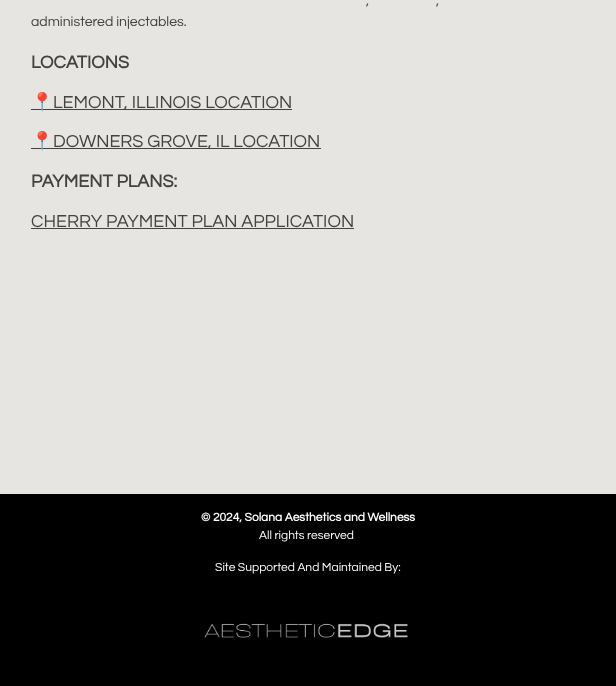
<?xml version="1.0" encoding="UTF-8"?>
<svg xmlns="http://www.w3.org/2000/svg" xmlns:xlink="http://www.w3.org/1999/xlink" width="616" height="686">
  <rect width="100%" height="100%" fill="#e6e5e2" />
  <rect x="31" y="109" width="261" height="1" fill="#45413d" />
  <rect x="31" y="148" width="290" height="1" fill="#45413d" />
  <rect x="31" y="228" width="323" height="1" fill="#45413d" />
  <rect y="494" width="616" height="192" fill="#000000" />
  <image x="204" y="623" width="204" height="15" xlink:href="image1.png" />
  <text x="366" y="5" style="font-family: Questrial; font-size: 14px; fill: #45413d">,</text>
  <text x="436" y="5" style="font-family: Questrial; font-size: 14px; fill: #45413d">,</text>
  <text x="31" y="26" style="font-family: Questrial; font-size: 14px; fill: #45413d">administered injectables.</text>
  <text x="31" y="68" style="font-family: Questrial; font-size: 18px; font-weight: bold; fill: #45413d">LOCATIONS</text>
  <text x="31" y="108" style="font-family: Noto Color Emoji; font-size: 18px; fill: #45413d">📍</text>
  <text x="53" y="108" style="font-family: Questrial; font-size: 18px; fill: #45413d">LEMONT, ILLINOIS LOCATION</text>
  <text x="31" y="147" style="font-family: Noto Color Emoji; font-size: 18px; fill: #45413d">📍</text>
  <text x="53" y="147" style="font-family: Questrial; font-size: 18px; fill: #45413d">DOWNERS GROVE, IL LOCATION</text>
  <text x="31" y="187" style="font-family: Questrial; font-size: 18px; font-weight: bold; fill: #45413d">PAYMENT PLANS:</text>
  <text x="31" y="227" style="font-family: Questrial; font-size: 18px; fill: #45413d">CHERRY PAYMENT PLAN APPLICATION</text>
  <text x="201" y="521" style="font-family: Questrial; font-size: 12px; font-weight: bold; fill: #ffffff">© 2024, Solana Aesthetics and Wellness</text>
  <text x="259" y="539" style="font-family: Questrial; font-size: 12px; fill: #ffffff">All rights reserved</text>
  <text x="215" y="571" style="font-family: Questrial; font-size: 12px; fill: #ffffff">Site Supported And Maintained By:</text>
</svg>
